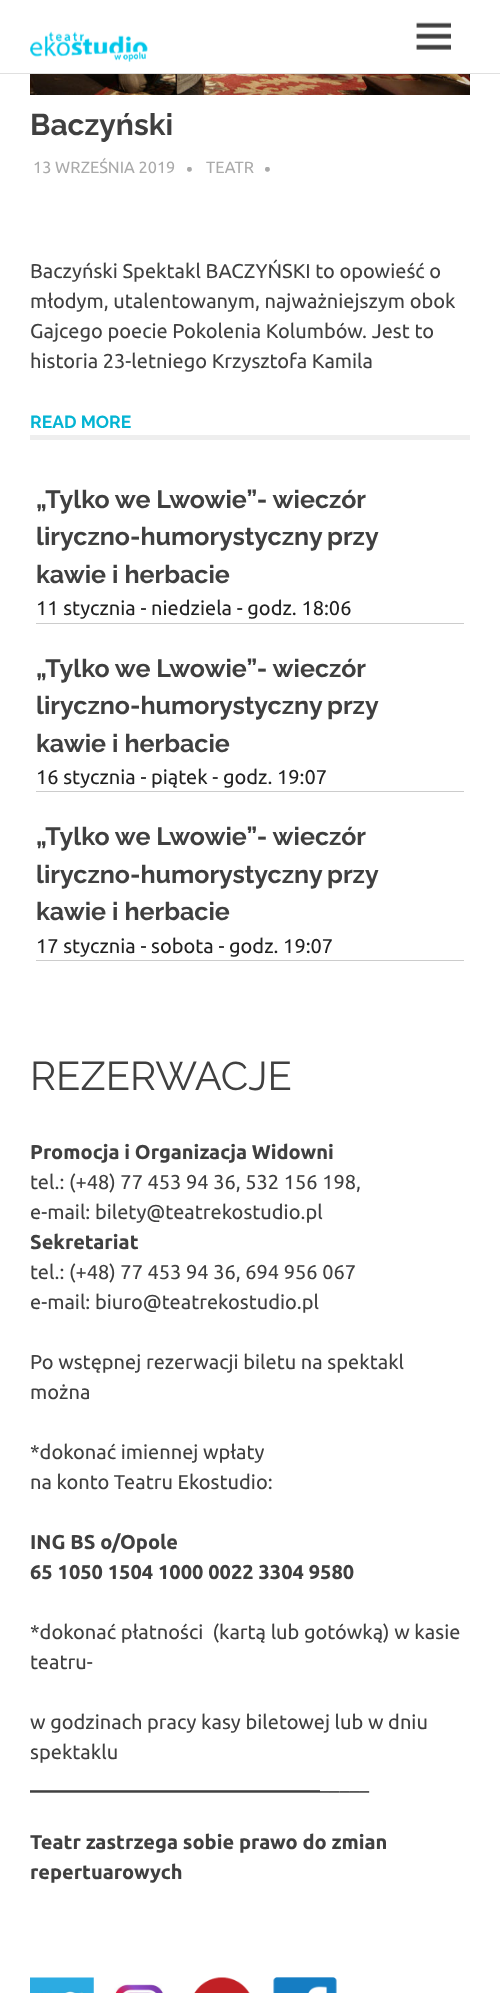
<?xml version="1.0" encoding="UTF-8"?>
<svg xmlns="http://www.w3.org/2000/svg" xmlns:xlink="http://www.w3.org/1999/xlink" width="500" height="1993">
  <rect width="100%" height="100%" fill="#ffffff" />
  <rect y="73" width="500" height="1" fill="#e0e0e0" />
  <image x="30" y="31" width="118" height="31" xlink:href="image1.png" />
  <image x="416" y="22" width="35" height="28" xlink:href="image2.png" />
  <image x="30" y="74" width="440" height="21" xlink:href="image3.png" />
  <rect x="30" y="435" width="440" height="5" fill="#eeeeee" />
  <rect x="36" y="623" width="428" height="1" fill="#cccccc" />
  <rect x="36" y="791" width="428" height="1" fill="#cccccc" />
  <rect x="36" y="960" width="428" height="1" fill="#cccccc" />
  <image x="30" y="1977" width="64" height="16" xlink:href="image4.png" />
  <image x="114" y="1984" width="50" height="9" xlink:href="image5.png" />
  <image x="194" y="1977" width="56" height="16" xlink:href="image6.png" />
  <image x="273" y="1977" width="64" height="16" xlink:href="image7.png" />
  <text x="30" y="135" style="font-family: Raleway; font-size: 30px; font-weight: 100; fill: #404040">Baczyński</text>
  <text x="33" y="173" style="font-family: Ubuntu; font-size: 16.25px; fill: #aaaaaa">13 WRZEŚNIA 2019</text>
  <text x="186" y="176" style="font-family: Ubuntu; font-size: 19px; fill: #aaaaaa">•</text>
  <text x="206" y="173" style="font-family: Ubuntu; font-size: 16.25px; fill: #aaaaaa">TEATR</text>
  <text x="264" y="176" style="font-family: Ubuntu; font-size: 19px; fill: #aaaaaa">•</text>
  <text x="30" y="278" style="font-family: Ubuntu; font-size: 20px; fill: #404040">Baczyński Spektakl BACZYŃSKI to opowieść o</text>
  <text x="30" y="308" style="font-family: Ubuntu; font-size: 20px; fill: #404040">młodym, utalentowanym, najważniejszym obok</text>
  <text x="30" y="338" style="font-family: Ubuntu; font-size: 20px; fill: #404040">Gajcego poecie Pokolenia Kolumbów. Jest to</text>
  <text x="30" y="368" style="font-family: Ubuntu; font-size: 20px; fill: #404040">historia 23-letniego Krzysztofa Kamila</text>
  <text x="30" y="428" style="font-family: Raleway; font-size: 17.5px; font-weight: 100; fill: #04b4d3">READ MORE</text>
  <text x="36" y="508" style="font-family: Raleway; font-size: 25px; font-weight: 100; fill: #404040">„Tylko we Lwowie”- wieczór</text>
  <text x="36" y="545" word-spacing="-1" style="font-family: Raleway; font-size: 25px; font-weight: 100; fill: #404040">liryczno-humorystyczny przy</text>
  <text x="36" y="583" style="font-family: Raleway; font-size: 25px; font-weight: 100; fill: #404040">kawie i herbacie</text>
  <text x="36" y="615" style="font-family: Ubuntu; font-size: 20px; fill: #222222">11 stycznia - niedziela - godz. 18:06</text>
  <text x="36" y="677" style="font-family: Raleway; font-size: 25px; font-weight: 100; fill: #404040">„Tylko we Lwowie”- wieczór</text>
  <text x="36" y="714" word-spacing="-1" style="font-family: Raleway; font-size: 25px; font-weight: 100; fill: #404040">liryczno-humorystyczny przy</text>
  <text x="36" y="752" style="font-family: Raleway; font-size: 25px; font-weight: 100; fill: #404040">kawie i herbacie</text>
  <text x="36" y="784" style="font-family: Ubuntu; font-size: 20px; fill: #222222">16 stycznia - piątek - godz. 19:07</text>
  <text x="36" y="845" style="font-family: Raleway; font-size: 25px; font-weight: 100; fill: #404040">„Tylko we Lwowie”- wieczór</text>
  <text x="36" y="883" word-spacing="-1" style="font-family: Raleway; font-size: 25px; font-weight: 100; fill: #404040">liryczno-humorystyczny przy</text>
  <text x="36" y="920" style="font-family: Raleway; font-size: 25px; font-weight: 100; fill: #404040">kawie i herbacie</text>
  <text x="36" y="953" style="font-family: Ubuntu; font-size: 20px; fill: #222222">17 stycznia - sobota - godz. 19:07</text>
  <text x="30" y="1090" style="font-family: 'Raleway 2'; font-size: 40px; font-weight: 100; fill: #404040">REZERWACJE</text>
  <text x="30" y="1159" style="font-family: Ubuntu; font-size: 20px; font-weight: bold; fill: #404040">Promocja i Organizacja Widowni</text>
  <text x="30" y="1189" style="font-family: Ubuntu; font-size: 20px; fill: #404040">tel.: (+48) 77 453 94 36, 532 156 198,</text>
  <text x="30" y="1219" style="font-family: Ubuntu; font-size: 20px; fill: #404040">e-mail: bilety@teatrekostudio.pl</text>
  <text x="30" y="1249" style="font-family: Ubuntu; font-size: 20px; font-weight: bold; fill: #404040">Sekretariat</text>
  <text x="30" y="1279" style="font-family: Ubuntu; font-size: 20px; fill: #404040">tel.: (+48) 77 453 94 36, 694 956 067</text>
  <text x="30" y="1309" style="font-family: Ubuntu; font-size: 20px; fill: #404040">e-mail: biuro@teatrekostudio.pl</text>
  <text x="30" y="1369" style="font-family: Ubuntu; font-size: 20px; fill: #404040">Po wstępnej rezerwacji biletu na spektakl</text>
  <text x="30" y="1399" style="font-family: Ubuntu; font-size: 20px; fill: #404040">można</text>
  <text x="30" y="1459" style="font-family: Ubuntu; font-size: 20px; fill: #404040">*dokonać imiennej wpłaty</text>
  <text x="30" y="1489" style="font-family: Ubuntu; font-size: 20px; fill: #404040">na konto Teatru Ekostudio:</text>
  <text x="30" y="1549" style="font-family: Ubuntu; font-size: 20px; font-weight: bold; fill: #404040">ING BS o/Opole</text>
  <text x="30" y="1579" style="font-family: Ubuntu; font-size: 20px; font-weight: bold; fill: #404040">65 1050 1504 1000 0022 3304 9580</text>
  <text x="30" y="1639" style="font-family: Ubuntu; font-size: 20px; fill: #404040" xml:space="preserve">*dokonać płatności  (kartą lub gotówką) w kasie</text>
  <text x="30" y="1669" style="font-family: Ubuntu; font-size: 20px; fill: #404040">teatru-</text>
  <text x="30" y="1729" style="font-family: Ubuntu; font-size: 20px; fill: #404040">w godzinach pracy kasy biletowej lub w dniu</text>
  <text x="30" y="1759" style="font-family: Ubuntu; font-size: 20px; fill: #404040">spektaklu</text>
  <text x="30" y="1789" style="font-family: Ubuntu; font-size: 20px; font-weight: bold; fill: #404040">_____________________________</text>
  <text x="320" y="1789" style="font-family: Ubuntu; font-size: 20px; fill: #404040">_____</text>
  <text x="30" y="1849" style="font-family: Ubuntu; font-size: 20px; font-weight: bold; fill: #404040">Teatr zastrzega sobie prawo do zmian</text>
  <text x="30" y="1879" style="font-family: Ubuntu; font-size: 20px; font-weight: bold; fill: #404040">repertuarowych</text>
</svg>
